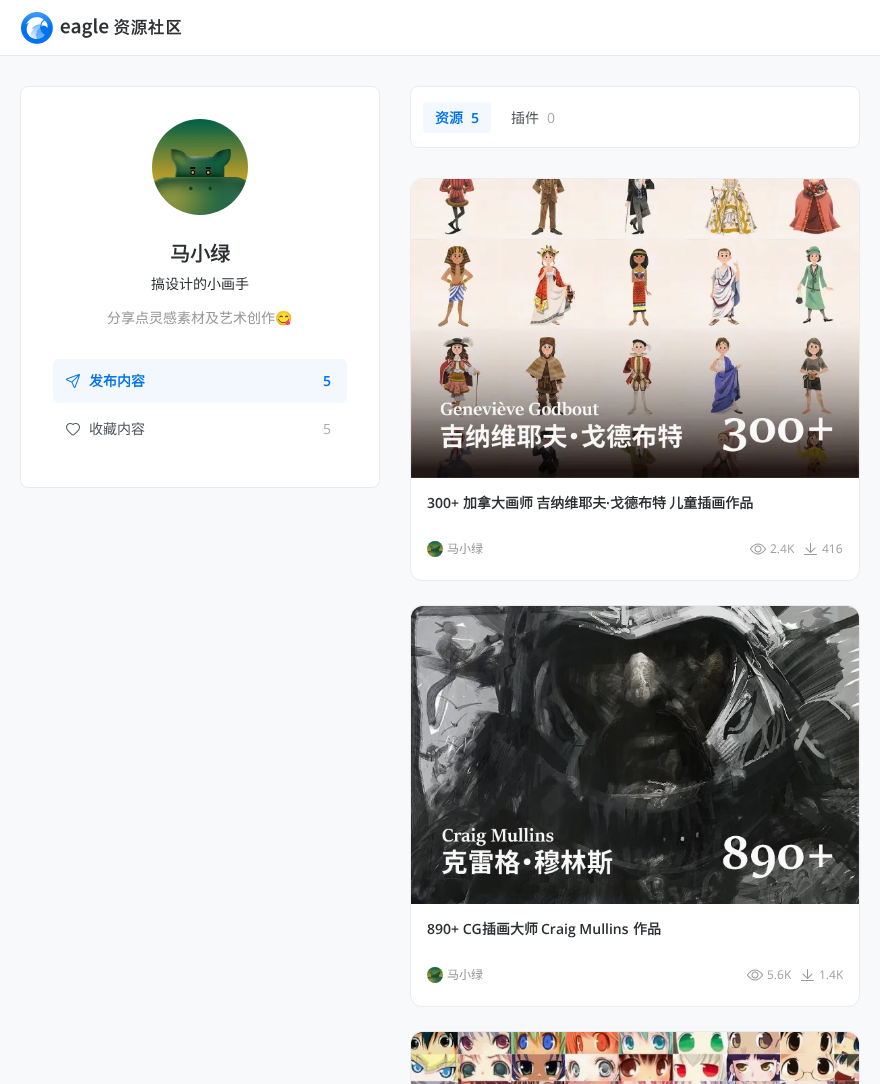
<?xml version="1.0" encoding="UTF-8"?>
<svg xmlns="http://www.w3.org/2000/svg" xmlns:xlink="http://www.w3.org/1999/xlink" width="880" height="1084">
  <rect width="100%" height="100%" fill="#f8f9fb" />
  <rect width="880" height="55" fill="#ffffff" />
  <rect y="55" width="880" height="1" fill="#ebebeb" />
  <image x="21" y="12" width="160" height="32" xlink:href="image1.png" />
  <rect x="20.5" y="86.5" width="359" height="401" rx="7.5" fill="#ffffff" stroke="#ebebeb" />
  <circle cx="200" cy="167" r="47.5" fill="none" stroke="#ebebeb" />
  <image x="152" y="119" width="96" height="96" xlink:href="image2.png" />
  <rect x="53" y="359" width="294" height="44" rx="6" fill="#f2f8fe" />
  <image x="66" y="374" width="14" height="14" xlink:href="image3.png" />
  <image x="66" y="423" width="14" height="13" xlink:href="image4.png" />
  <rect x="410.5" y="86.5" width="449" height="61" rx="7.5" fill="#ffffff" stroke="#ebebeb" />
  <rect x="423" y="102" width="68" height="31" rx="4" fill="#f2f8fe" />
  <rect x="410.5" y="178.5" width="449" height="402" rx="11.5" fill="#ffffff" stroke="#ebebeb" />
  <image x="411" y="179" width="448" height="299" xlink:href="image5.png" />
  <circle cx="435" cy="549" r="7.5" fill="none" stroke="#ebebeb" />
  <image x="427" y="541" width="16" height="16" xlink:href="image6.png" />
  <image x="750" y="543" width="16" height="12" xlink:href="image7.png" />
  <image x="804" y="543" width="13" height="12" xlink:href="image8.png" />
  <rect x="410.5" y="605.5" width="449" height="401" rx="11.5" fill="#ffffff" stroke="#ebebeb" />
  <image x="411" y="606" width="448" height="298" xlink:href="image9.png" />
  <circle cx="435" cy="975" r="7.5" fill="none" stroke="#ebebeb" />
  <image x="427" y="967" width="16" height="16" xlink:href="image6.png" />
  <image x="747" y="969" width="16" height="12" xlink:href="image7.png" />
  <image x="801" y="969" width="13" height="12" xlink:href="image8.png" />
  <rect x="410.5" y="1031.5" width="449" height="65" rx="11.5" fill="#ffffff" stroke="#ebebeb" />
  <image x="411" y="1032" width="448" height="52" xlink:href="image10.png" />
  <text x="170" y="261" style="font-family: Noto Sans CJK SC; font-size: 20px; font-weight: bold; fill: #2c2f32">马小绿</text>
  <text x="151" y="289" style="font-family: Noto Sans CJK SC; font-size: 14px; fill: #2c2f32">搞设计的小画手</text>
  <text x="107" y="323" style="font-family: Noto Sans CJK SC; font-size: 14px; fill: #969799">分享点灵感素材及艺术创作</text>
  <text x="275" y="323" style="font-family: Noto Color Emoji; font-size: 14px; fill: #969799">😋</text>
  <text x="89" y="386" style="font-family: Noto Sans CJK SC; font-size: 14px; font-weight: bold; fill: #0072ef">发布内容</text>
  <text x="323" y="386" style="font-family: Open Sans; font-size: 14px; font-weight: 600; fill: #0072ef">5</text>
  <text x="89" y="434" style="font-family: Noto Sans CJK SC; font-size: 14px; fill: #50555b">收藏内容</text>
  <text x="323" y="434" style="font-family: Open Sans; font-size: 14px; fill: #a8aaad">5</text>
  <text x="435" y="123" style="font-family: Noto Sans CJK SC; font-size: 14px; font-weight: bold; fill: #0072ef">资源</text>
  <text x="471" y="123" style="font-family: Open Sans; font-size: 14px; font-weight: 600; fill: #0072ef">5</text>
  <text x="511" y="123" style="font-family: Noto Sans CJK SC; font-size: 14px; fill: #50555b">插件</text>
  <text x="547" y="123" style="font-family: Open Sans; font-size: 14px; fill: #a8aaad">0</text>
  <text x="427" y="508" style="font-family: Open Sans; font-size: 14px; font-weight: 600; fill: #2c2f32">300+</text>
  <text x="463" y="508" style="font-family: Noto Sans CJK SC; font-size: 14px; font-weight: bold; fill: #2c2f32">加拿大画师 吉纳维耶夫</text>
  <text x="606" y="508" style="font-family: Open Sans; font-size: 14px; font-weight: 600; fill: #2c2f32">·</text>
  <text x="610" y="508" style="font-family: Noto Sans CJK SC; font-size: 14px; font-weight: bold; fill: #2c2f32">戈德布特 儿童插画作品</text>
  <text x="447" y="553" style="font-family: Noto Sans CJK SC; font-size: 12px; fill: #969799">马小绿</text>
  <text x="770" y="553" style="font-family: Open Sans; font-size: 12px; fill: #9da0a3">2.4K</text>
  <text x="822" y="553" style="font-family: Open Sans; font-size: 12px; fill: #9da0a3">416</text>
  <text x="427" y="934" style="font-family: Open Sans; font-size: 14px; font-weight: 600; fill: #2c2f32">890+ CG</text>
  <text x="482" y="934" style="font-family: Noto Sans CJK SC; font-size: 14px; font-weight: bold; fill: #2c2f32">插画大师</text>
  <text x="541" y="934" style="font-family: Open Sans; font-size: 14px; font-weight: 600; fill: #2c2f32">Craig Mullins</text>
  <text x="633" y="934" style="font-family: Noto Sans CJK SC; font-size: 14px; font-weight: bold; fill: #2c2f32">作品</text>
  <text x="447" y="979" style="font-family: Noto Sans CJK SC; font-size: 12px; fill: #969799">马小绿</text>
  <text x="767" y="979" style="font-family: Open Sans; font-size: 12px; fill: #9da0a3">5.6K</text>
  <text x="819" y="979" style="font-family: Open Sans; font-size: 12px; fill: #9da0a3">1.4K</text>
</svg>
